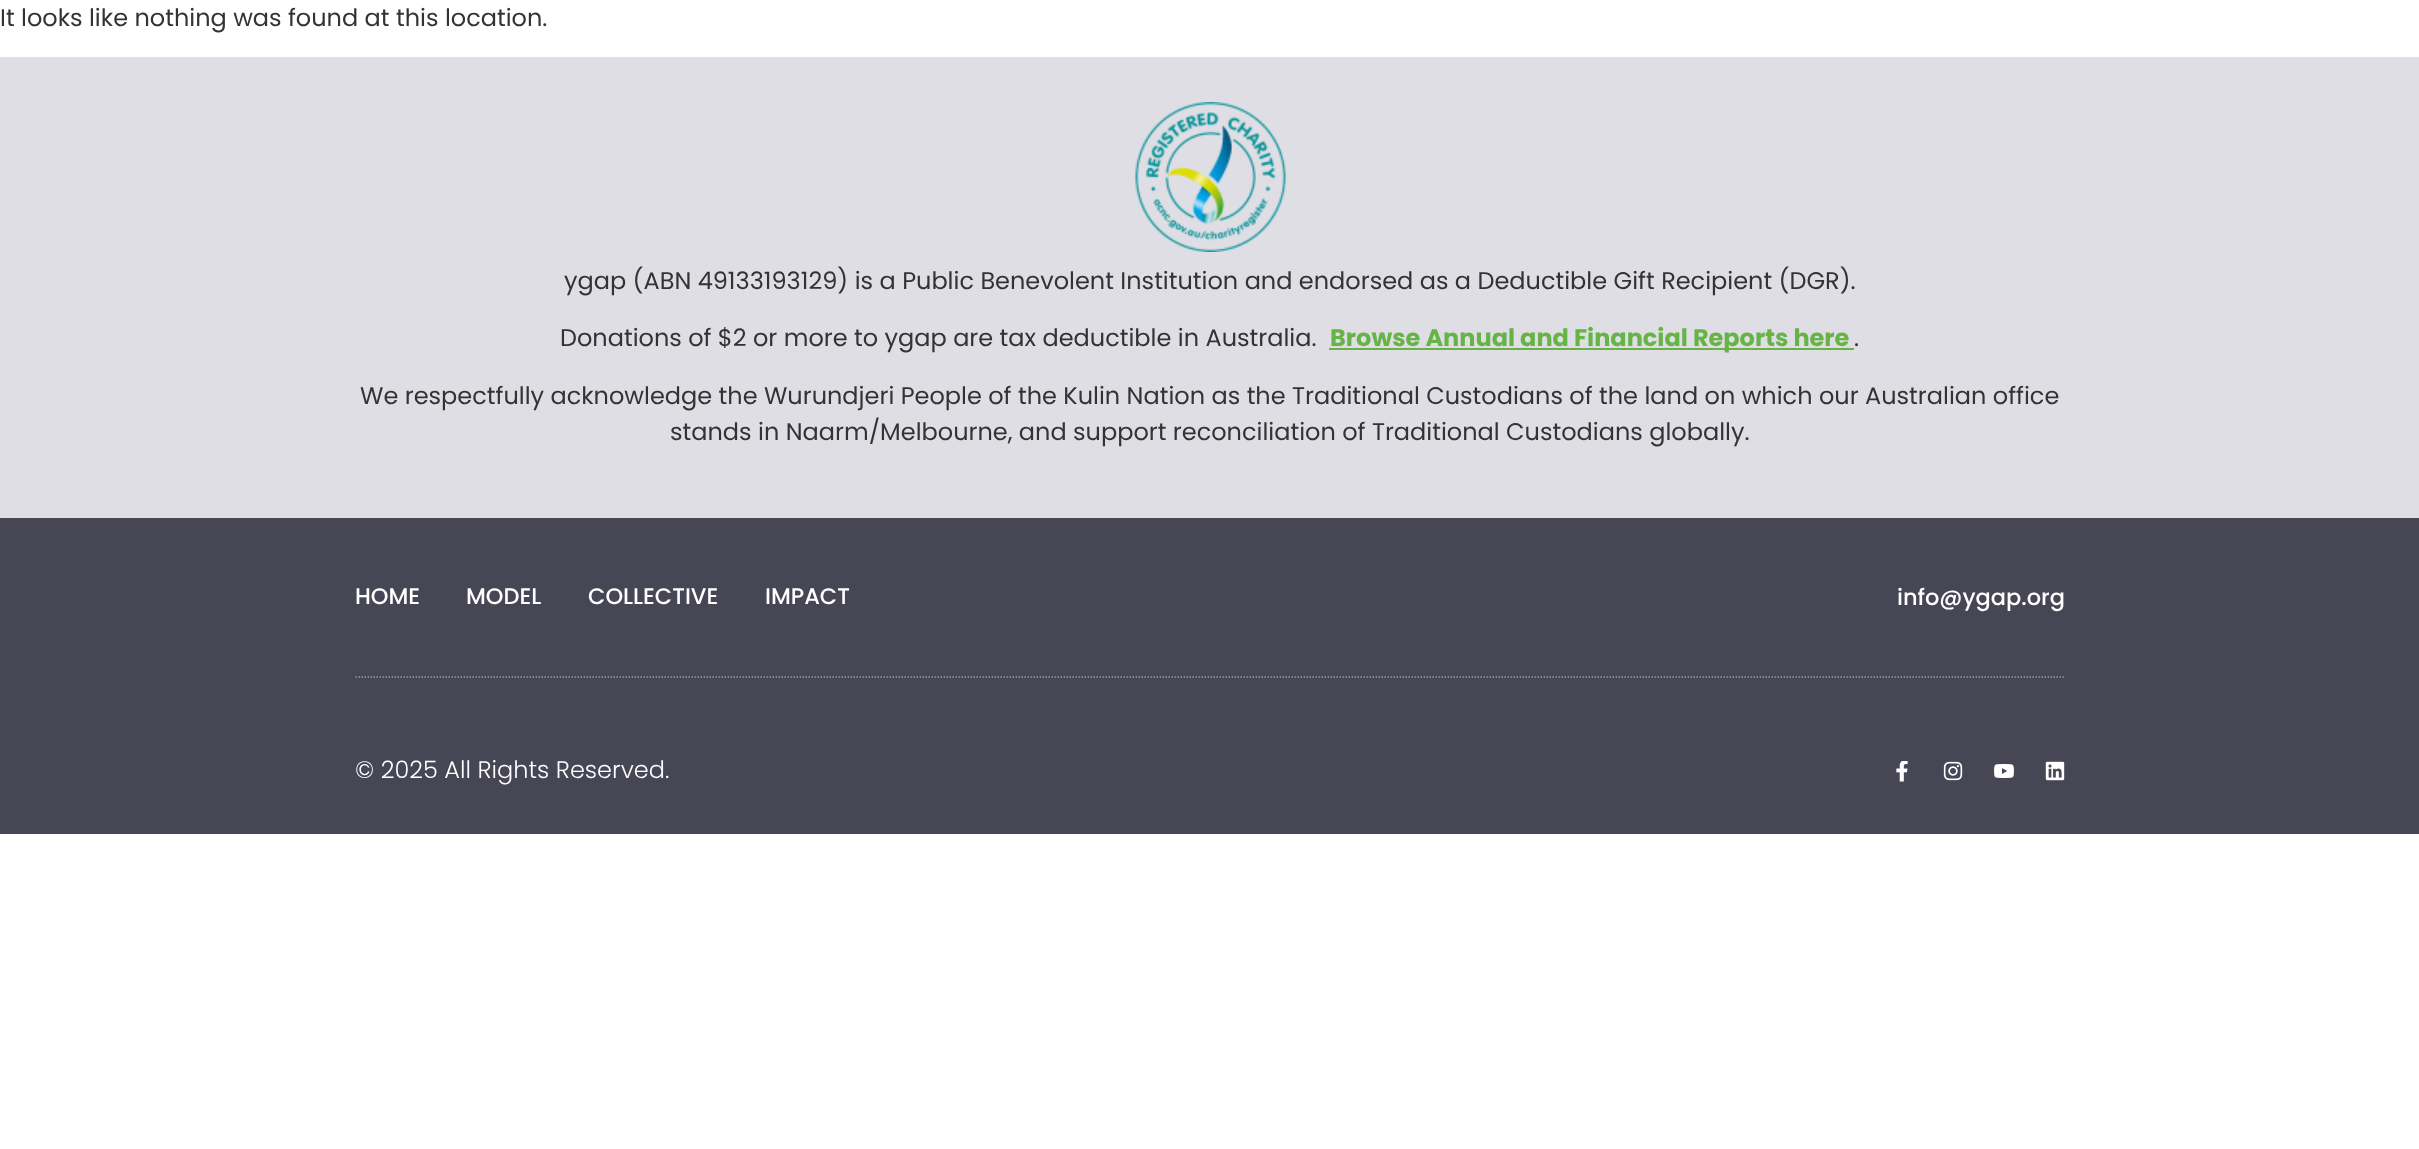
<?xml version="1.0" encoding="UTF-8"?>
<svg xmlns="http://www.w3.org/2000/svg" xmlns:xlink="http://www.w3.org/1999/xlink" width="2419" height="1149">
  <rect width="100%" height="100%" fill="#ffffff" />
  <rect y="57" width="2419" height="461" fill="#dedee4" />
  <image x="1135" y="102" width="151" height="150" xlink:href="image1.png" />
  <rect x="1329" y="348" width="525" height="2" fill="#67b346" />
  <rect y="518" width="2419" height="316" fill="#464655" />
  <path d="M 355.5 677 h 1710" fill="none" stroke="#9b9b9b" stroke-width="1.5" stroke-dasharray="1.5 1.5" />
  <image x="1896" y="761" width="12" height="21" xlink:href="image2.png" />
  <image x="1943" y="761" width="20" height="20" xlink:href="image3.png" />
  <image x="1994" y="764" width="20" height="14" xlink:href="image4.png" />
  <image x="2045" y="761" width="20" height="20" xlink:href="image5.png" />
  <text x="0" y="26" style="font-family: Poppins; font-size: 24px; fill: #333333">It looks like nothing was found at this location.</text>
  <text x="564" y="289" style="font-family: Poppins; font-size: 24px; fill: #333333">ygap (ABN 49133193129) is a Public Benevolent Institution and endorsed as a Deductible Gift Recipient (DGR).</text>
  <text x="560" y="346" style="font-family: Poppins; font-size: 24px; fill: #333333">Donations of $2 or more to ygap are tax deductible in Australia.</text>
  <text x="1330" y="346" style="font-family: Poppins; font-size: 24px; font-weight: bold; fill: #67b346">Browse Annual and Financial Reports here</text>
  <text x="1854" y="346" style="font-family: Poppins; font-size: 24px; fill: #333333">.</text>
  <text x="360" y="404" style="font-family: Poppins; font-size: 24px; fill: #333333">We respectfully acknowledge the Wurundjeri People of the Kulin Nation as the Traditional Custodians of the land on which our Australian office</text>
  <text x="670" y="440" style="font-family: Poppins; font-size: 24px; fill: #333333">stands in Naarm/Melbourne, and support reconciliation of Traditional Custodians globally.</text>
  <text x="355" y="604" style="font-family: Poppins; font-size: 22.5px; font-weight: 500; fill: #ffffff">HOME</text>
  <text x="466" y="604" style="font-family: Poppins; font-size: 22.5px; font-weight: 500; fill: #ffffff">MODEL</text>
  <text x="588" y="604" style="font-family: Poppins; font-size: 22.5px; font-weight: 500; fill: #ffffff">COLLECTIVE</text>
  <text x="765" y="604" style="font-family: Poppins; font-size: 22.5px; font-weight: 500; fill: #ffffff">IMPACT</text>
  <text x="1897" y="605" style="font-family: Poppins; font-size: 22.5px; font-weight: 500; fill: #ffffff">info@ygap.org</text>
  <text x="355" y="778" style="font-family: Poppins; font-size: 24px; font-weight: 300; fill: #ffffff">© 2025 All Rights Reserved.</text>
</svg>
